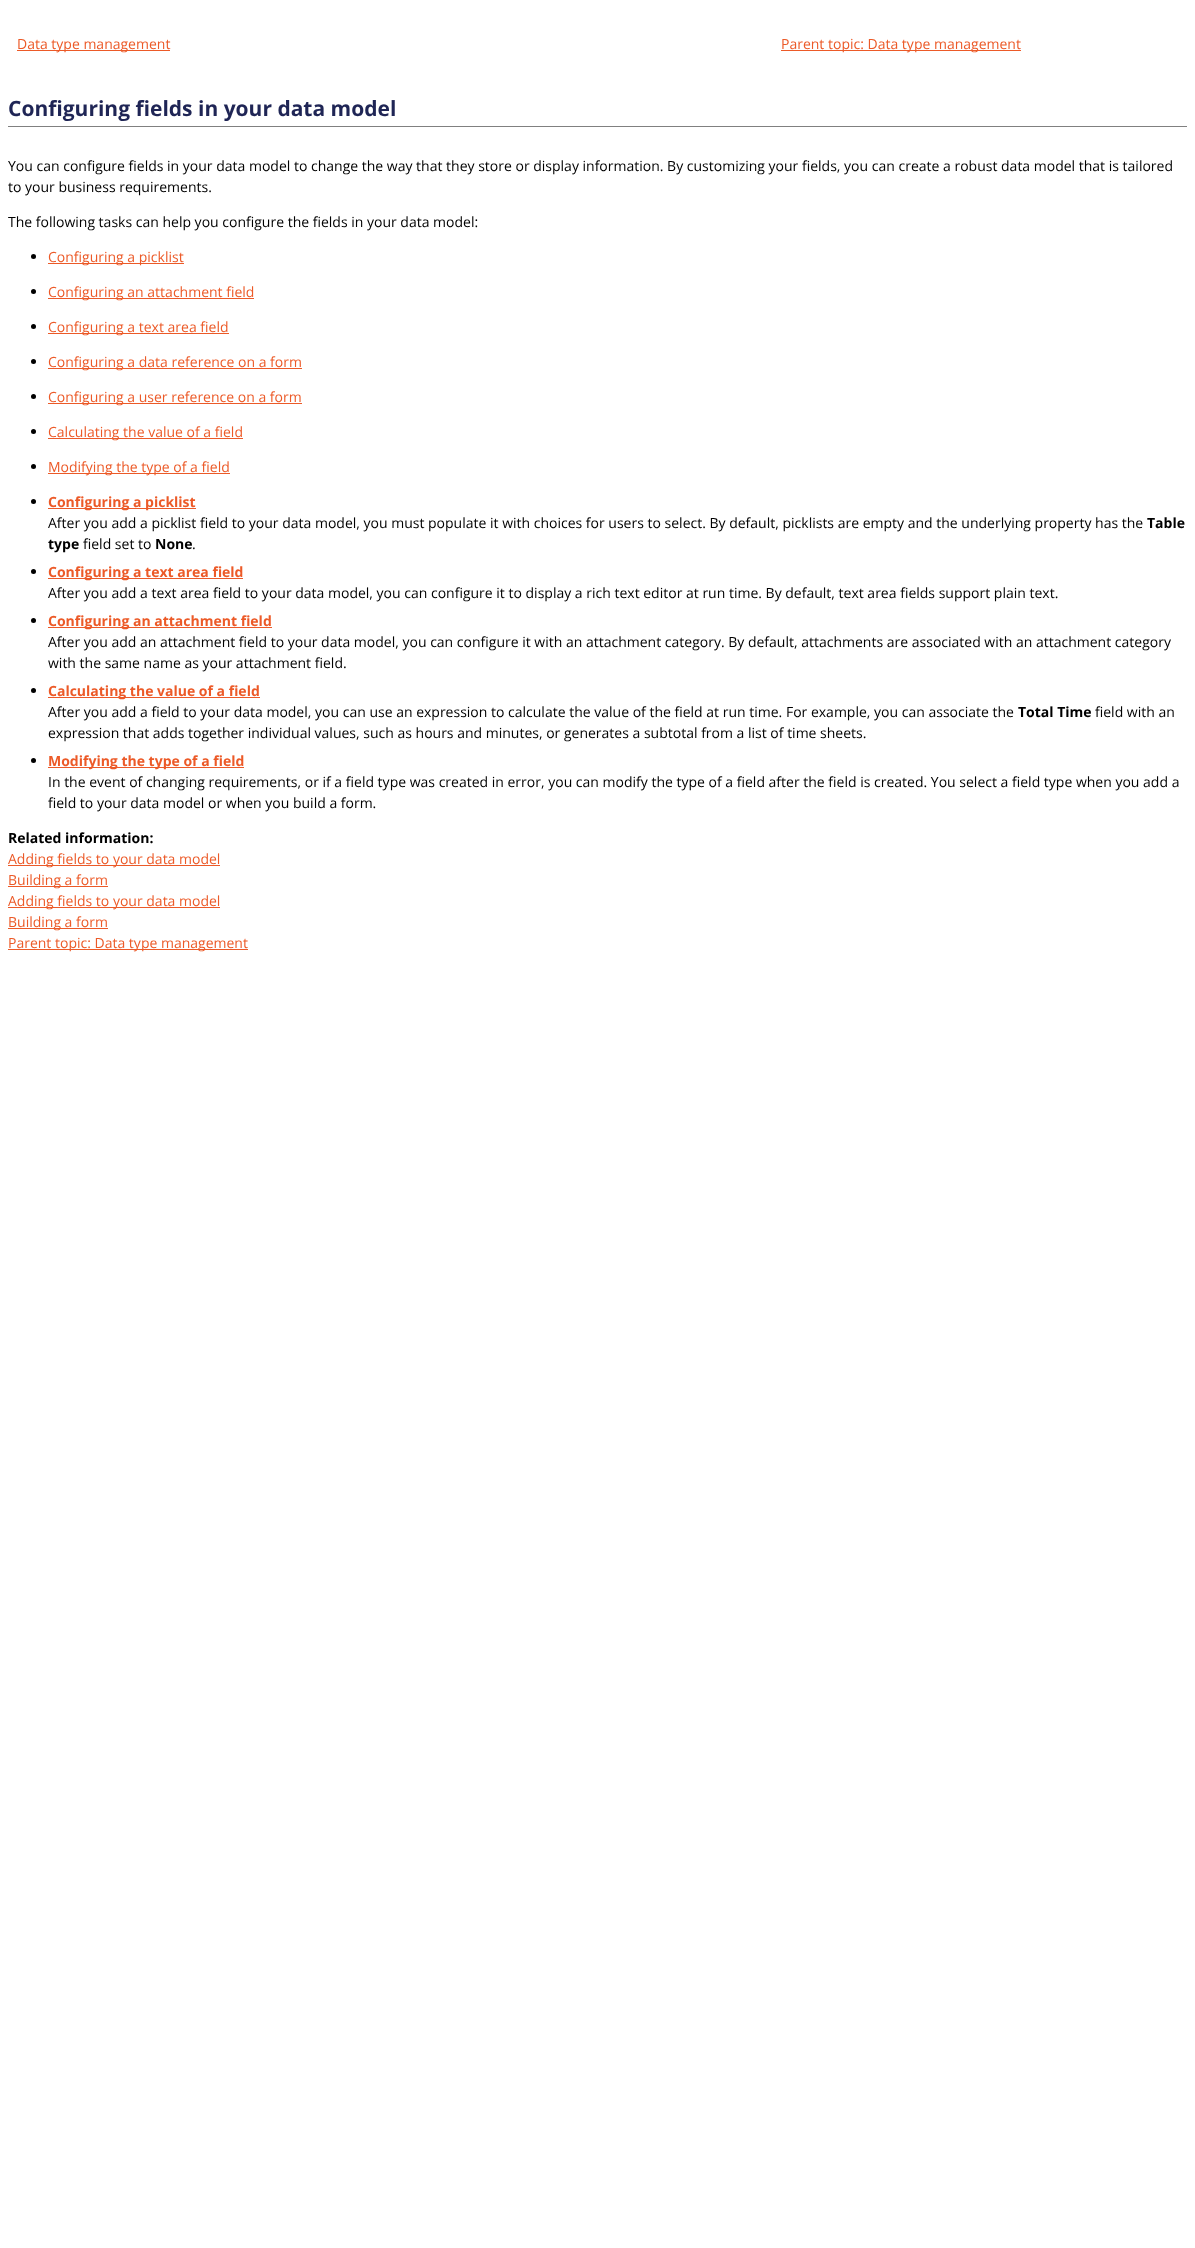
<?xml version="1.0" encoding="UTF-8"?>
<svg xmlns="http://www.w3.org/2000/svg" xmlns:xlink="http://www.w3.org/1999/xlink" width="1195" height="2248">
  <rect width="100%" height="100%" fill="#ffffff" />
  <rect x="17" y="50" width="153" height="1" fill="#ec5a28" />
  <rect x="781" y="50" width="240" height="1" fill="#ec5a28" />
  <rect x="8" y="126" width="1179" height="1" fill="#808080" />
  <circle cx="33.5" cy="256.5" r="2.5" fill="#000000" />
  <rect x="48" y="263" width="136" height="1" fill="#ec5a28" />
  <circle cx="33.5" cy="291.5" r="2.5" fill="#000000" />
  <rect x="48" y="298" width="206" height="1" fill="#ec5a28" />
  <circle cx="33.5" cy="326.5" r="2.5" fill="#000000" />
  <rect x="48" y="333" width="181" height="1" fill="#ec5a28" />
  <circle cx="33.5" cy="361.5" r="2.5" fill="#000000" />
  <rect x="48" y="368" width="254" height="1" fill="#ec5a28" />
  <circle cx="33.5" cy="396.5" r="2.5" fill="#000000" />
  <rect x="48" y="403" width="254" height="1" fill="#ec5a28" />
  <circle cx="33.5" cy="431.5" r="2.5" fill="#000000" />
  <rect x="48" y="438" width="195" height="1" fill="#ec5a28" />
  <circle cx="33.5" cy="466.5" r="2.5" fill="#000000" />
  <rect x="48" y="473" width="182" height="1" fill="#ec5a28" />
  <circle cx="33.5" cy="501.5" r="2.5" fill="#000000" />
  <rect x="48" y="508" width="148" height="1" fill="#ec5a28" />
  <circle cx="33.5" cy="571.5" r="2.5" fill="#000000" />
  <rect x="48" y="578" width="195" height="1" fill="#ec5a28" />
  <circle cx="33.5" cy="620.5" r="2.5" fill="#000000" />
  <rect x="48" y="627" width="224" height="1" fill="#ec5a28" />
  <circle cx="33.5" cy="690.5" r="2.5" fill="#000000" />
  <rect x="48" y="697" width="212" height="1" fill="#ec5a28" />
  <circle cx="33.5" cy="760.5" r="2.5" fill="#000000" />
  <rect x="48" y="767" width="196" height="1" fill="#ec5a28" />
  <rect x="8" y="865" width="212" height="1" fill="#ec5a28" />
  <rect x="8" y="886" width="100" height="1" fill="#ec5a28" />
  <rect x="8" y="907" width="212" height="1" fill="#ec5a28" />
  <rect x="8" y="928" width="100" height="1" fill="#ec5a28" />
  <rect x="8" y="949" width="240" height="1" fill="#ec5a28" />
  <text x="17" y="49" style="font-family: Open Sans; font-size: 14px; fill: #ec5a28">Data type management</text>
  <text x="781" y="49" style="font-family: Open Sans; font-size: 14px; fill: #ec5a28">Parent topic: Data type management</text>
  <text x="8" y="116" style="font-family: Open Sans; font-size: 21px; font-weight: bold; fill: #1f2555">Configuring fields in your data model</text>
  <text x="8" y="171" style="font-family: Open Sans; font-size: 14px; fill: #000000">You can configure fields in your data model to change the way that they store or display information. By customizing your fields, you can create a robust data model that is tailored</text>
  <text x="8" y="192" style="font-family: Open Sans; font-size: 14px; fill: #000000">to your business requirements.</text>
  <text x="8" y="227" style="font-family: Open Sans; font-size: 14px; fill: #000000">The following tasks can help you configure the fields in your data model:</text>
  <text x="48" y="262" style="font-family: Open Sans; font-size: 14px; fill: #ec5a28">Configuring a picklist</text>
  <text x="48" y="297" style="font-family: Open Sans; font-size: 14px; fill: #ec5a28">Configuring an attachment field</text>
  <text x="48" y="332" style="font-family: Open Sans; font-size: 14px; fill: #ec5a28">Configuring a text area field</text>
  <text x="48" y="367" style="font-family: Open Sans; font-size: 14px; fill: #ec5a28">Configuring a data reference on a form</text>
  <text x="48" y="402" style="font-family: Open Sans; font-size: 14px; fill: #ec5a28">Configuring a user reference on a form</text>
  <text x="48" y="437" style="font-family: Open Sans; font-size: 14px; fill: #ec5a28">Calculating the value of a field</text>
  <text x="48" y="472" style="font-family: Open Sans; font-size: 14px; fill: #ec5a28">Modifying the type of a field</text>
  <text x="48" y="507" style="font-family: Open Sans; font-size: 14px; font-weight: bold; fill: #ec5a28">Configuring a picklist</text>
  <text x="48" y="528" style="font-family: Open Sans; font-size: 14px; fill: #000000">After you add a picklist field to your data model, you must populate it with choices for users to select. By default, picklists are empty and the underlying property has the</text>
  <text x="1147" y="528" style="font-family: Open Sans; font-size: 14px; font-weight: bold; fill: #000000">Table</text>
  <text x="48" y="549" style="font-family: Open Sans; font-size: 14px; font-weight: bold; fill: #000000">type</text>
  <text x="83" y="549" style="font-family: Open Sans; font-size: 14px; fill: #000000">field set to</text>
  <text x="155" y="549" style="font-family: Open Sans; font-size: 14px; font-weight: bold; fill: #000000">None</text>
  <text x="192" y="549" style="font-family: Open Sans; font-size: 14px; fill: #000000">.</text>
  <text x="48" y="577" style="font-family: Open Sans; font-size: 14px; font-weight: bold; fill: #ec5a28">Configuring a text area field</text>
  <text x="48" y="598" style="font-family: Open Sans; font-size: 14px; fill: #000000">After you add a text area field to your data model, you can configure it to display a rich text editor at run time. By default, text area fields support plain text.</text>
  <text x="48" y="626" style="font-family: Open Sans; font-size: 14px; font-weight: bold; fill: #ec5a28">Configuring an attachment field</text>
  <text x="48" y="647" style="font-family: Open Sans; font-size: 14px; fill: #000000">After you add an attachment field to your data model, you can configure it with an attachment category. By default, attachments are associated with an attachment category</text>
  <text x="48" y="668" style="font-family: Open Sans; font-size: 14px; fill: #000000">with the same name as your attachment field.</text>
  <text x="48" y="696" style="font-family: Open Sans; font-size: 14px; font-weight: bold; fill: #ec5a28">Calculating the value of a field</text>
  <text x="48" y="717" style="font-family: Open Sans; font-size: 14px; fill: #000000">After you add a field to your data model, you can use an expression to calculate the value of the field at run time. For example, you can associate the</text>
  <text x="1018" y="717" style="font-family: Open Sans; font-size: 14px; font-weight: bold; fill: #000000">Total Time</text>
  <text x="1095" y="717" style="font-family: Open Sans; font-size: 14px; fill: #000000">field with an</text>
  <text x="48" y="738" style="font-family: Open Sans; font-size: 14px; fill: #000000">expression that adds together individual values, such as hours and minutes, or generates a subtotal from a list of time sheets.</text>
  <text x="48" y="766" style="font-family: Open Sans; font-size: 14px; font-weight: bold; fill: #ec5a28">Modifying the type of a field</text>
  <text x="48" y="787" style="font-family: Open Sans; font-size: 14px; fill: #000000">In the event of changing requirements, or if a field type was created in error, you can modify the type of a field after the field is created. You select a field type when you add a</text>
  <text x="48" y="808" style="font-family: Open Sans; font-size: 14px; fill: #000000">field to your data model or when you build a form.</text>
  <text x="8" y="843" style="font-family: Open Sans; font-size: 14px; font-weight: bold; fill: #000000">Related information:</text>
  <text x="8" y="864" style="font-family: Open Sans; font-size: 14px; fill: #ec5a28">Adding fields to your data model</text>
  <text x="8" y="885" style="font-family: Open Sans; font-size: 14px; fill: #ec5a28">Building a form</text>
  <text x="8" y="906" style="font-family: Open Sans; font-size: 14px; fill: #ec5a28">Adding fields to your data model</text>
  <text x="8" y="927" style="font-family: Open Sans; font-size: 14px; fill: #ec5a28">Building a form</text>
  <text x="8" y="948" style="font-family: Open Sans; font-size: 14px; fill: #ec5a28">Parent topic: Data type management</text>
</svg>
